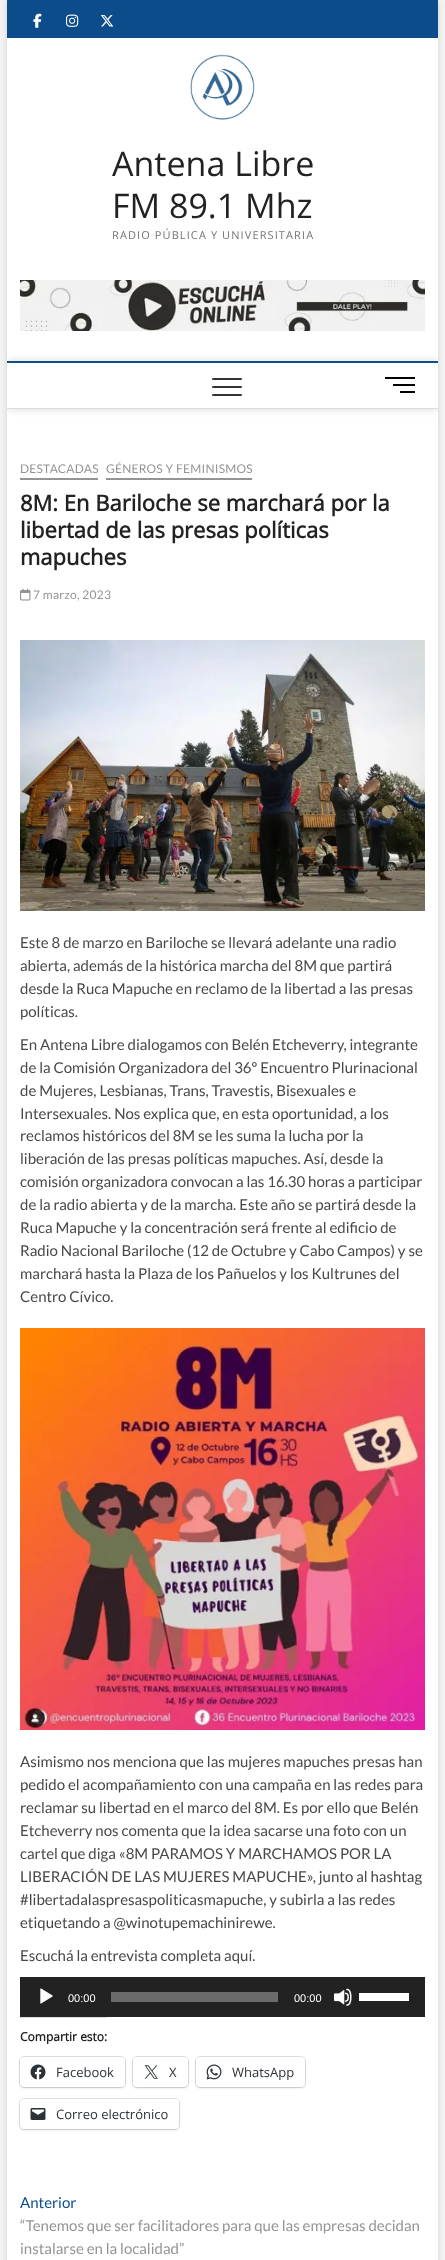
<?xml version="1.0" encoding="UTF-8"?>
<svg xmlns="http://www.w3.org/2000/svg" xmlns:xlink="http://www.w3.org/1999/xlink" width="445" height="2260">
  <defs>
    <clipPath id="clip1"><rect x="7" y="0" width="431" height="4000" /></clipPath>
    <clipPath id="clip2"><path d="M 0 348 h 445 v 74 h -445 z m 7 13 h 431 v 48 h -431 z" clip-rule="evenodd" /></clipPath>
  </defs>
  <rect width="100%" height="100%" fill="#f4f4f4" />
  <rect x="7" y="1" width="431" height="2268" fill="#000000" fill-opacity="0.15" filter="blur(3px)" />
  <rect x="7" y="38" width="431" height="2222" fill="#ffffff" />
  <rect x="7" width="431" height="38" fill="#0c4c8a" />
  <image x="33" y="13" width="9" height="15" xlink:href="image1.png" />
  <image x="66" y="14" width="13" height="13" xlink:href="image2.png" />
  <image x="100" y="15" width="14" height="12" xlink:href="image3.png" />
  <image x="190" y="54" width="65" height="66" xlink:href="image4.png" />
  <image x="20" y="280" width="405" height="51" xlink:href="image5.png" />
  <g clip-path="url(#clip1)">
    <g clip-path="url(#clip2)">
      <rect x="7" y="361" width="431" height="48" fill="#000000" fill-opacity="0.15" filter="blur(4px)" />
    </g>
  </g>
  <rect x="7" y="361" width="431" height="2" fill="#0c4c8a" />
  <rect x="7" y="408" width="431" height="1" fill="#dddddd" />
  <rect x="212" y="386" width="30" height="2" rx="1" fill="#333333" />
  <rect x="212" y="378" width="30" height="2" rx="1" fill="#333333" />
  <rect x="212" y="394" width="30" height="2" rx="1" fill="#333333" />
  <rect x="393" y="384" width="22" height="2" fill="#000000" />
  <rect x="385" y="377" width="30" height="2" fill="#000000" />
  <rect x="400" y="391" width="15" height="2" fill="#000000" />
  <rect x="20" y="478" width="78" height="2" fill="#949494" />
  <rect x="106" y="478" width="146" height="2" fill="#949494" />
  <image x="20" y="588" width="11" height="13" xlink:href="image6.png" />
  <image x="20" y="640" width="405" height="271" xlink:href="image7.png" />
  <image x="20" y="1328" width="405" height="402" xlink:href="image8.png" />
  <rect x="20" y="1977" width="405" height="40" fill="#222222" />
  <image x="40" y="1988" width="13" height="16" xlink:href="image9.png" />
  <rect x="111" y="1992" width="167" height="10" fill="#6b6b6b" />
  <image x="334" y="1988" width="18" height="18" xlink:href="image10.png" />
  <rect x="359" y="1993" width="50" height="8" fill="#ffffff" />
  <rect x="20" y="2017" width="87" height="1" fill="#dcdcde" />
  <rect x="19.5" y="2056.5" width="106" height="31" rx="4.5" fill="none" stroke="#e0e0e0" />
  <rect x="20" y="2058" width="105" height="30" rx="4" fill="#000000" fill-opacity="0.12" filter="blur(1px)" />
  <rect x="20" y="2057" width="105" height="30" rx="4" fill="#ffffff" />
  <image x="30" y="2064" width="16" height="16" xlink:href="image11.png" />
  <rect x="132.5" y="2056.5" width="56" height="31" rx="4.5" fill="none" stroke="#e0e0e0" />
  <rect x="133" y="2058" width="55" height="30" rx="4" fill="#000000" fill-opacity="0.12" filter="blur(1px)" />
  <rect x="133" y="2057" width="55" height="30" rx="4" fill="#ffffff" />
  <image x="144" y="2065" width="14" height="14" xlink:href="image12.png" />
  <rect x="195.5" y="2056.5" width="110" height="31" rx="4.5" fill="none" stroke="#e0e0e0" />
  <rect x="196" y="2058" width="109" height="30" rx="4" fill="#000000" fill-opacity="0.12" filter="blur(1px)" />
  <rect x="196" y="2057" width="109" height="30" rx="4" fill="#ffffff" />
  <image x="206" y="2064" width="16" height="16" xlink:href="image13.png" />
  <rect x="19.5" y="2098.5" width="160" height="31" rx="4.5" fill="none" stroke="#e0e0e0" />
  <rect x="20" y="2100" width="159" height="30" rx="4" fill="#000000" fill-opacity="0.12" filter="blur(1px)" />
  <rect x="20" y="2099" width="159" height="30" rx="4" fill="#ffffff" />
  <image x="30" y="2108" width="16" height="12" xlink:href="image14.png" />
  <text x="112" y="176" style="font-family: Open Sans; font-size: 34px; fill: #222222">Antena Libre</text>
  <text x="112" y="218" style="font-family: Open Sans; font-size: 34px; fill: #222222">FM 89.1 Mhz</text>
  <text x="112" y="239" style="font-family: Open Sans; font-size: 11px; letter-spacing: 1.1px; fill: #747474">RADIO PÚBLICA Y UNIVERSITARIA</text>
  <text x="20" y="473" style="font-family: Lato; font-size: 12px; letter-spacing: 0.25px; fill: #949494">DESTACADAS</text>
  <text x="106" y="473" style="font-family: Lato; font-size: 12px; letter-spacing: 0.25px; fill: #949494">GÉNEROS Y FEMINISMOS</text>
  <text x="20" y="511" style="font-family: Open Sans; font-size: 22px; font-weight: bold; fill: #222222">8M: En Bariloche se marchará por la</text>
  <text x="20" y="538" style="font-family: Open Sans; font-size: 22px; font-weight: bold; fill: #222222">libertad de las presas políticas</text>
  <text x="20" y="565" style="font-family: Open Sans; font-size: 22px; font-weight: bold; fill: #222222">mapuches</text>
  <text x="33" y="599" style="font-family: Lato; font-size: 12px; letter-spacing: 0.25px; fill: #949494">7 marzo, 2023</text>
  <text x="20" y="948" style="font-family: Lato; font-size: 15px; fill: #484848">Este 8 de marzo en Bariloche se llevará adelante una radio</text>
  <text x="20" y="971" style="font-family: Lato; font-size: 15px; fill: #484848">abierta, además de la histórica marcha del 8M que partirá</text>
  <text x="20" y="994" style="font-family: Lato; font-size: 15px; fill: #484848">desde la Ruca Mapuche en reclamo de la libertad a las presas</text>
  <text x="20" y="1017" style="font-family: Lato; font-size: 15px; fill: #484848">políticas.</text>
  <text x="20" y="1050" style="font-family: Lato; font-size: 15px; fill: #484848">En Antena Libre dialogamos con Belén Etcheverry, integrante</text>
  <text x="20" y="1073" style="font-family: Lato; font-size: 15px; fill: #484848">de la Comisión Organizadora del 36º Encuentro Plurinacional</text>
  <text x="20" y="1096" style="font-family: Lato; font-size: 15px; fill: #484848">de Mujeres, Lesbianas, Trans, Travestis, Bisexuales e</text>
  <text x="20" y="1119" style="font-family: Lato; font-size: 15px; fill: #484848">Intersexuales. Nos explica que, en esta oportunidad, a los</text>
  <text x="20" y="1141" style="font-family: Lato; font-size: 15px; fill: #484848">reclamos históricos del 8M se les suma la lucha por la</text>
  <text x="20" y="1164" style="font-family: Lato; font-size: 15px; fill: #484848">liberación de las presas políticas mapuches. Así, desde la</text>
  <text x="20" y="1187" style="font-family: Lato; font-size: 15px; fill: #484848">comisión organizadora convocan a las 16.30 horas a participar</text>
  <text x="20" y="1210" style="font-family: Lato; font-size: 15px; fill: #484848">de la radio abierta y de la marcha. Este año se partirá desde la</text>
  <text x="20" y="1233" style="font-family: Lato; font-size: 15px; fill: #484848">Ruca Mapuche y la concentración será frente al edificio de</text>
  <text x="20" y="1256" style="font-family: Lato; font-size: 15px; fill: #484848">Radio Nacional Bariloche (12 de Octubre y Cabo Campos) y se</text>
  <text x="20" y="1279" style="font-family: Lato; font-size: 15px; fill: #484848">marchará hasta la Plaza de los Pañuelos y los Kultrunes del</text>
  <text x="20" y="1302" style="font-family: Lato; font-size: 15px; fill: #484848">Centro Cívico.</text>
  <text x="20" y="1767" style="font-family: Lato; font-size: 15px; fill: #484848">Asimismo nos menciona que las mujeres mapuches presas han</text>
  <text x="20" y="1790" style="font-family: Lato; font-size: 15px; fill: #484848">pedido el acompañamiento con una campaña en las redes para</text>
  <text x="20" y="1813" style="font-family: Lato; font-size: 15px; fill: #484848">reclamar su libertad en el marco del 8M. Es por ello que Belén</text>
  <text x="20" y="1836" style="font-family: Lato; font-size: 15px; fill: #484848">Etcheverry nos comenta que la idea sacarse una foto con un</text>
  <text x="20" y="1859" style="font-family: Lato; font-size: 15px; fill: #484848">cartel que diga «8M PARAMOS Y MARCHAMOS POR LA</text>
  <text x="20" y="1882" style="font-family: Lato; font-size: 15px; fill: #484848">LIBERACIÓN DE LAS MUJERES MAPUCHE», junto al hashtag</text>
  <text x="20" y="1905" style="font-family: Lato; font-size: 15px; fill: #484848">#libertadalaspresaspoliticasmapuche, y subirla a las redes</text>
  <text x="20" y="1928" style="font-family: Lato; font-size: 15px; fill: #484848">etiquetando a @winotupemachinirewe.</text>
  <text x="20" y="1961" style="font-family: Lato; font-size: 15px; fill: #484848">Escuchá la entrevista completa aquí.</text>
  <text x="68" y="2002" style="font-family: Liberation Sans; font-size: 11px; fill: #ffffff">00:00</text>
  <text x="294" y="2002" style="font-family: Liberation Sans; font-size: 11px; fill: #ffffff">00:00</text>
  <text x="20" y="2041" style="font-family: Open Sans; font-size: 12px; font-weight: bold; fill: #222222">Compartir esto:</text>
  <text x="56" y="2077" style="font-family: Open Sans; font-size: 13px; fill: #2c3338">Facebook</text>
  <text x="169" y="2077" style="font-family: Open Sans; font-size: 13px; fill: #2c3338">X</text>
  <text x="232" y="2077" style="font-family: Open Sans; font-size: 13px; fill: #2c3338">WhatsApp</text>
  <text x="56" y="2119" style="font-family: Open Sans; font-size: 13px; fill: #2c3338">Correo electrónico</text>
  <text x="20" y="2208" style="font-family: Lato; font-size: 15px; fill: #0c4c8a">Anterior</text>
  <text x="20" y="2231" style="font-family: Lato; font-size: 15px; fill: #949494">“Tenemos que ser facilitadores para que las empresas decidan</text>
  <text x="20" y="2254" style="font-family: Lato; font-size: 15px; fill: #949494">instalarse en la localidad”</text>
</svg>
